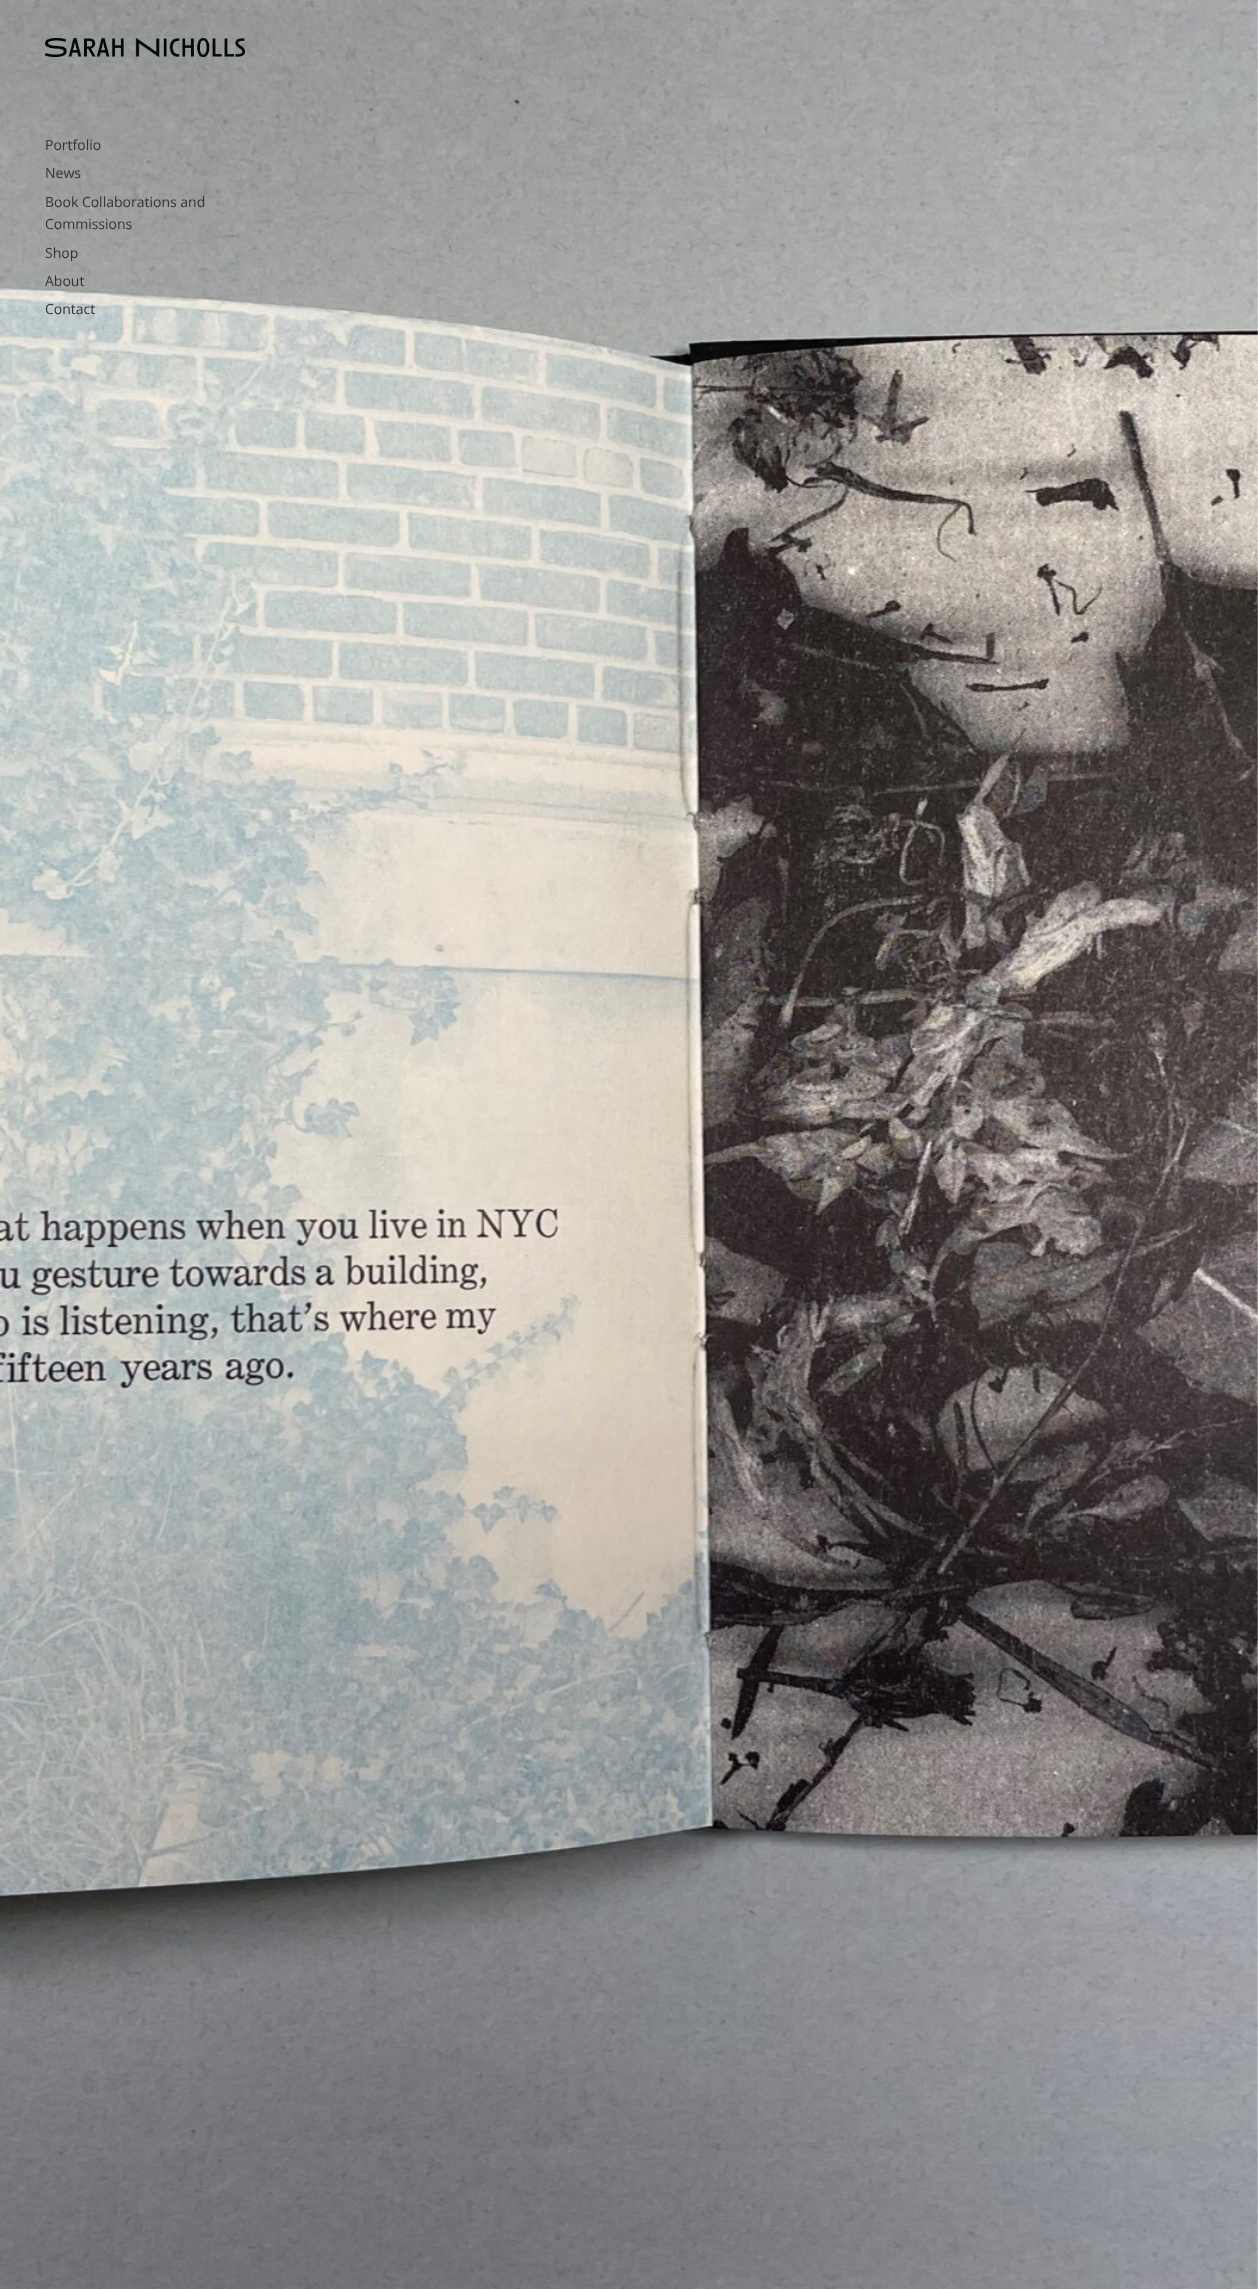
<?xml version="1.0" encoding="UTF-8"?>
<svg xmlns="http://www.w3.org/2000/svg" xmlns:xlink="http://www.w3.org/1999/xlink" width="1258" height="2289">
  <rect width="100%" height="100%" fill="#ffffff" />
  <image x="0" y="0" width="1258" height="2289" xlink:href="image1.png" />
  <image x="45" y="38" width="200" height="19" xlink:href="image2.png" />
  <text x="45" y="150" style="font-family: Open Sans; font-size: 14px; fill: #333333">Portfolio</text>
  <text x="45" y="178" style="font-family: Open Sans; font-size: 14px; fill: #333333">News</text>
  <text x="45" y="207" style="font-family: Open Sans; font-size: 14px; fill: #333333">Book Collaborations and</text>
  <text x="45" y="229" style="font-family: Open Sans; font-size: 14px; fill: #333333">Commissions</text>
  <text x="45" y="258" style="font-family: Open Sans; font-size: 14px; fill: #333333">Shop</text>
  <text x="45" y="286" style="font-family: Open Sans; font-size: 14px; fill: #333333">About</text>
  <text x="45" y="314" style="font-family: Open Sans; font-size: 14px; fill: #333333">Contact</text>
</svg>
